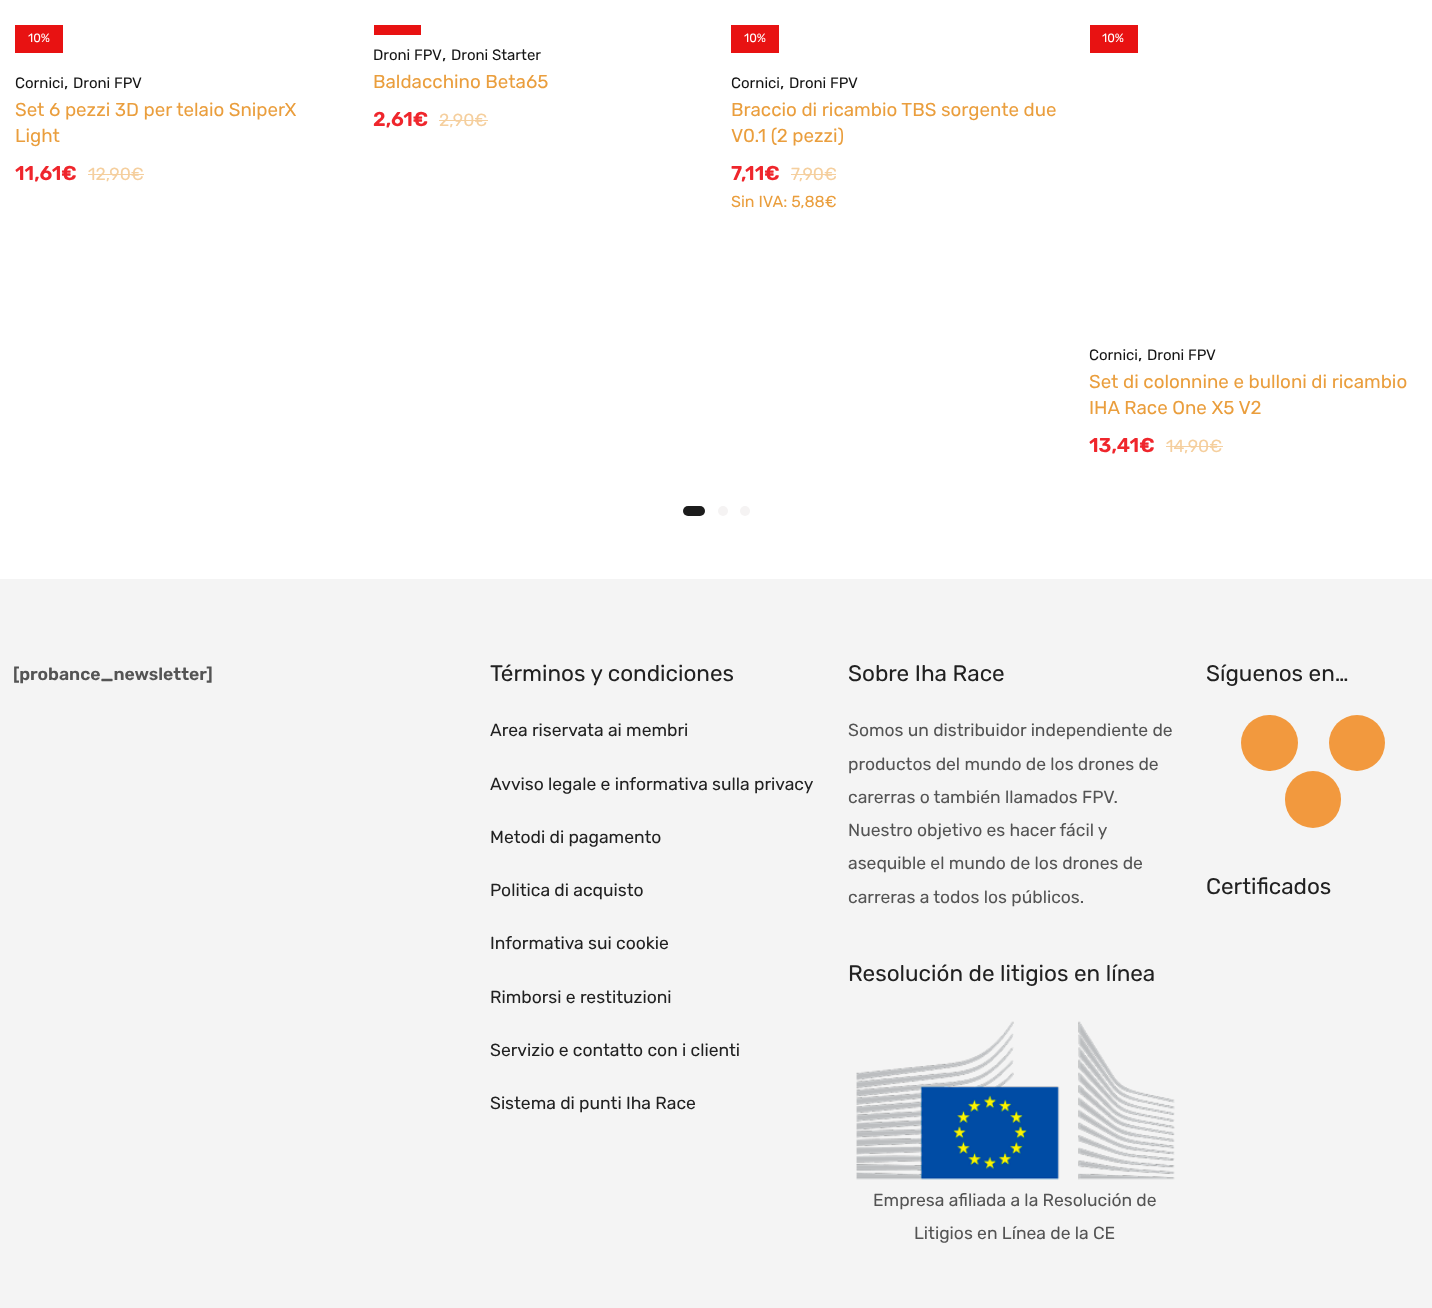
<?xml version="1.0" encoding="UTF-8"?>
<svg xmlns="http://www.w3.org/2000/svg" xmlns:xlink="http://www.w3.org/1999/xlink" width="1432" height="1308">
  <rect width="100%" height="100%" fill="#ffffff" />
  <rect x="15" y="25" width="48" height="28" fill="#e81212" />
  <rect x="88" y="174" width="56" height="1" fill="#f5cf9e" />
  <rect x="374" y="25" width="47" height="10" fill="#e81212" />
  <rect x="439" y="120" width="49" height="1" fill="#f5cf9e" />
  <rect x="731" y="25" width="48" height="28" fill="#e81212" />
  <rect x="791" y="174" width="45" height="1" fill="#f5cf9e" />
  <rect x="1090" y="25" width="48" height="28" fill="#e81212" />
  <rect x="1166" y="446" width="57" height="1" fill="#f5cf9e" />
  <rect x="683" y="506" width="22" height="10" rx="5" fill="#1c1c1c" />
  <circle cx="723" cy="511" r="5" fill="#f5f3f3" />
  <circle cx="745" cy="511" r="5" fill="#f5f3f3" />
  <rect y="579" width="1432" height="729" fill="#f4f4f4" />
  <image x="856" y="1021" width="319" height="159" xlink:href="image1.png" />
  <rect x="1241" y="715" width="57" height="56" rx="28" fill="#f2993e" />
  <circle cx="1357" cy="743" r="28" fill="#f2993e" />
  <rect x="1285" y="771" width="56" height="57" rx="28" fill="#f2993e" />
  <text x="28" y="42" style="font-family: Rubik; font-size: 12px; fill: #ffffff">10%</text>
  <text x="15" y="88" style="font-family: Rubik; font-size: 15px; fill: #141414">Cornici</text>
  <text x="64" y="88" style="font-family: Rubik; font-size: 17.5px; fill: #141414">,</text>
  <text x="73" y="88" style="font-family: Rubik; font-size: 15px; fill: #141414">Droni FPV</text>
  <text x="15" y="116" style="font-family: Rubik; font-size: 18.75px; fill: #ea9e3d">Set 6 pezzi 3D per telaio SniperX</text>
  <text x="15" y="142" style="font-family: Rubik; font-size: 18.75px; fill: #ea9e3d">Light</text>
  <text x="15" y="180" style="font-family: Rubik; font-size: 20px; font-weight: 600; fill: #ef262c">11,61€</text>
  <text x="88" y="180" style="font-family: Rubik; font-size: 17.5px; fill: #f5cf9e">12,90€</text>
  <text x="373" y="60" style="font-family: Rubik; font-size: 15px; fill: #141414">Droni FPV</text>
  <text x="442" y="60" style="font-family: Rubik; font-size: 17.5px; fill: #141414">,</text>
  <text x="451" y="60" style="font-family: Rubik; font-size: 15px; fill: #141414">Droni Starter</text>
  <text x="373" y="88" style="font-family: Rubik; font-size: 18.75px; fill: #ea9e3d">Baldacchino Beta65</text>
  <text x="373" y="126" style="font-family: Rubik; font-size: 20px; font-weight: 600; fill: #ef262c">2,61€</text>
  <text x="439" y="126" style="font-family: Rubik; font-size: 17.5px; fill: #f5cf9e">2,90€</text>
  <text x="744" y="42" style="font-family: Rubik; font-size: 12px; fill: #ffffff">10%</text>
  <text x="731" y="88" style="font-family: Rubik; font-size: 15px; fill: #141414">Cornici</text>
  <text x="780" y="88" style="font-family: Rubik; font-size: 17.5px; fill: #141414">,</text>
  <text x="789" y="88" style="font-family: Rubik; font-size: 15px; fill: #141414">Droni FPV</text>
  <text x="731" y="116" style="font-family: Rubik; font-size: 18.75px; fill: #ea9e3d">Braccio di ricambio TBS sorgente due</text>
  <text x="731" y="142" style="font-family: Rubik; font-size: 18.75px; fill: #ea9e3d">V0.1 (2 pezzi)</text>
  <text x="731" y="180" style="font-family: Rubik; font-size: 20px; font-weight: 600; fill: #ef262c">7,11€</text>
  <text x="791" y="180" style="font-family: Rubik; font-size: 17.5px; fill: #f5cf9e">7,90€</text>
  <text x="731" y="207" style="font-family: Rubik; font-size: 16px; fill: #ea9e3d">Sin IVA: 5,88€</text>
  <text x="1102" y="42" style="font-family: Rubik; font-size: 12px; fill: #ffffff">10%</text>
  <text x="1089" y="360" style="font-family: Rubik; font-size: 15px; fill: #141414">Cornici</text>
  <text x="1138" y="360" style="font-family: Rubik; font-size: 17.5px; fill: #141414">,</text>
  <text x="1147" y="360" style="font-family: Rubik; font-size: 15px; fill: #141414">Droni FPV</text>
  <text x="1089" y="388" style="font-family: Rubik; font-size: 18.75px; fill: #ea9e3d">Set di colonnine e bulloni di ricambio</text>
  <text x="1089" y="414" style="font-family: Rubik; font-size: 18.75px; fill: #ea9e3d">IHA Race One X5 V2</text>
  <text x="1089" y="452" style="font-family: Rubik; font-size: 20px; font-weight: 600; fill: #ef262c">13,41€</text>
  <text x="1166" y="452" style="font-family: Rubik; font-size: 17.5px; fill: #f5cf9e">14,90€</text>
  <text x="13" y="680" style="font-family: Rubik; font-size: 17.5px; font-weight: 600; fill: #545454">[probance_newsletter]</text>
  <text x="490" y="681" style="font-family: Rubik; font-size: 22.5px; fill: #212121">Términos y condiciones</text>
  <text x="490" y="736" style="font-family: Rubik; font-size: 17.5px; fill: #212121">Area riservata ai membri</text>
  <text x="490" y="790" style="font-family: Rubik; font-size: 17.5px; fill: #212121">Avviso legale e informativa sulla privacy</text>
  <text x="490" y="843" style="font-family: Rubik; font-size: 17.5px; fill: #212121">Metodi di pagamento</text>
  <text x="490" y="896" style="font-family: Rubik; font-size: 17.5px; fill: #212121">Politica di acquisto</text>
  <text x="490" y="949" style="font-family: Rubik; font-size: 17.5px; fill: #212121">Informativa sui cookie</text>
  <text x="490" y="1003" style="font-family: Rubik; font-size: 17.5px; fill: #212121">Rimborsi e restituzioni</text>
  <text x="490" y="1056" style="font-family: Rubik; font-size: 17.5px; fill: #212121">Servizio e contatto con i clienti</text>
  <text x="490" y="1109" style="font-family: Rubik; font-size: 17.5px; fill: #212121">Sistema di punti Iha Race</text>
  <text x="848" y="681" style="font-family: Rubik; font-size: 22.5px; fill: #212121">Sobre Iha Race</text>
  <text x="848" y="736" style="font-family: Rubik; font-size: 17.5px; fill: #545454">Somos un distribuidor independiente de</text>
  <text x="848" y="770" style="font-family: Rubik; font-size: 17.5px; fill: #545454">productos del mundo de los drones de</text>
  <text x="848" y="803" style="font-family: Rubik; font-size: 17.5px; fill: #545454">carerras o también llamados FPV.</text>
  <text x="848" y="836" style="font-family: Rubik; font-size: 17.5px; fill: #545454">Nuestro objetivo es hacer fácil y</text>
  <text x="848" y="869" style="font-family: Rubik; font-size: 17.5px; fill: #545454">asequible el mundo de los drones de</text>
  <text x="848" y="903" style="font-family: Rubik; font-size: 17.5px; fill: #545454">carreras a todos los públicos.</text>
  <text x="848" y="981" style="font-family: Rubik; font-size: 22.5px; fill: #212121">Resolución de litigios en línea</text>
  <text x="873" y="1206" style="font-family: Rubik; font-size: 17.5px; fill: #545454">Empresa afiliada a la Resolución de</text>
  <text x="914" y="1239" style="font-family: Rubik; font-size: 17.5px; fill: #545454">Litigios en Línea de la CE</text>
  <text x="1206" y="681" style="font-family: Rubik; font-size: 22.5px; fill: #212121">Síguenos en…</text>
  <text x="1206" y="894" style="font-family: Rubik; font-size: 22.5px; fill: #212121">Certificados</text>
</svg>
